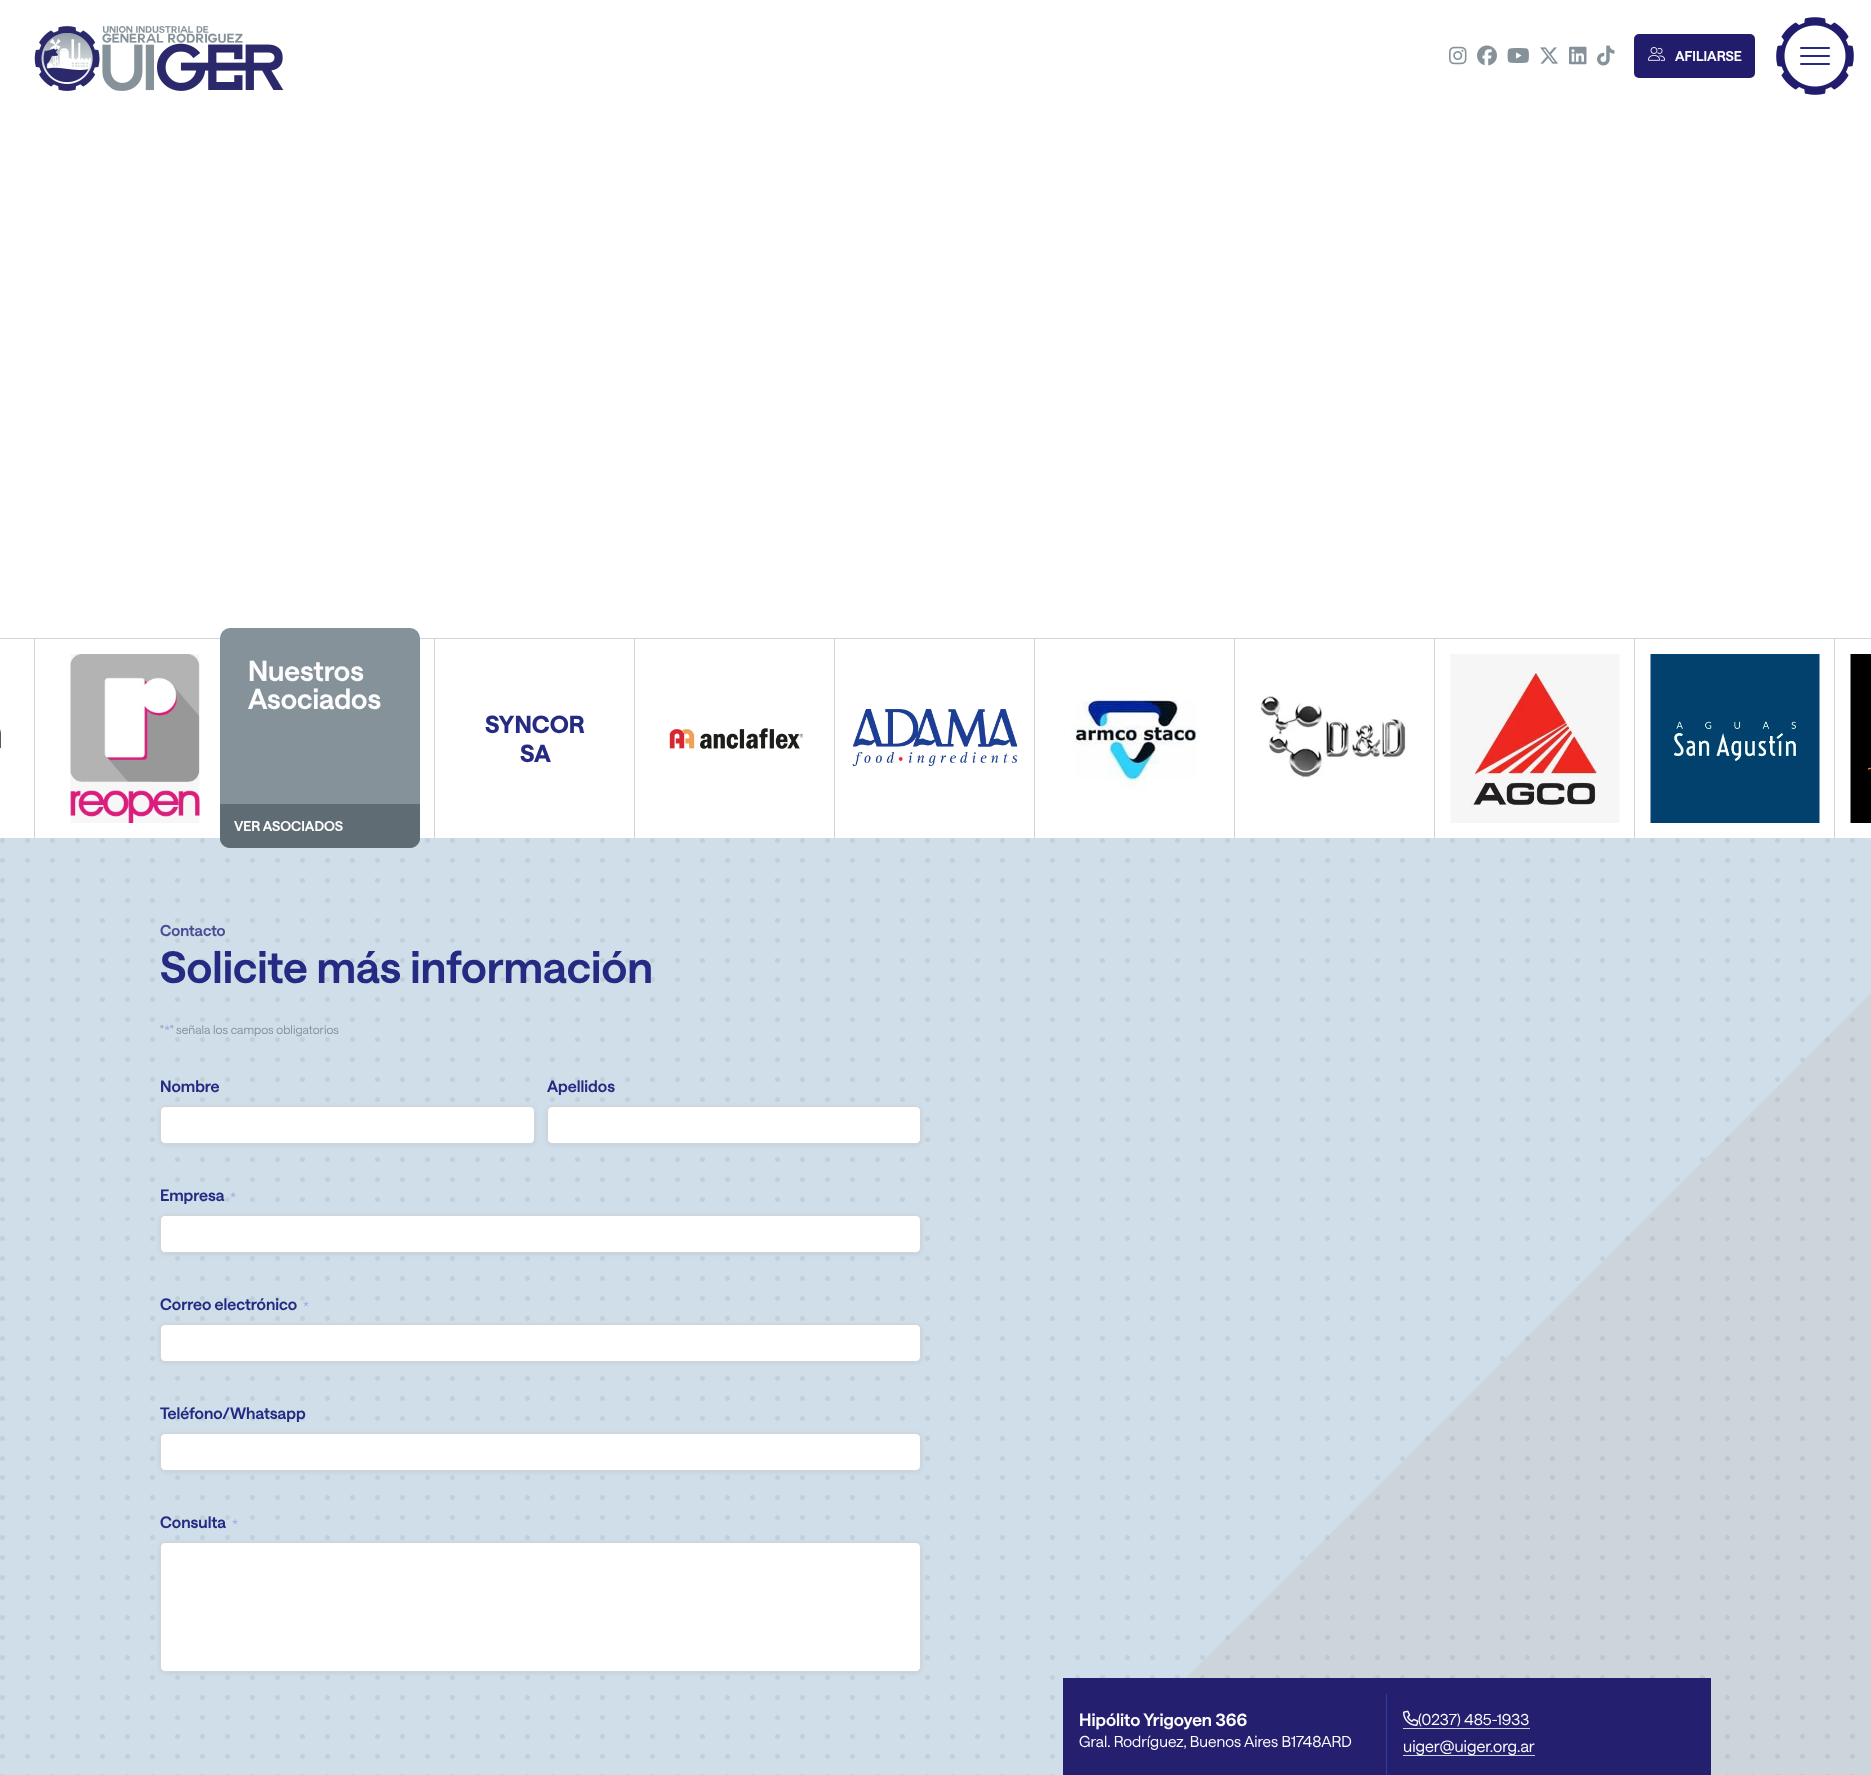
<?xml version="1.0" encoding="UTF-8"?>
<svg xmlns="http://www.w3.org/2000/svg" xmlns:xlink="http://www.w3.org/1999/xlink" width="1871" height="1775">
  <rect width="100%" height="100%" fill="#ffffff" />
  <image x="34" y="26" width="250" height="65" xlink:href="image1.png" />
  <image x="1449" y="46" width="18" height="19" xlink:href="image2.png" />
  <image x="1477" y="45" width="20" height="21" xlink:href="image3.png" />
  <image x="1507" y="48" width="22" height="15" xlink:href="image4.png" />
  <image x="1540" y="47" width="18" height="17" xlink:href="image5.png" />
  <image x="1569" y="46" width="18" height="19" xlink:href="image6.png" />
  <image x="1597" y="45" width="18" height="21" xlink:href="image7.png" />
  <rect x="1634" y="34" width="121" height="44" rx="5" fill="#221c6d" />
  <image x="1648" y="47" width="18" height="14" xlink:href="image8.png" />
  <image x="1776" y="17" width="78" height="78" xlink:href="image9.png" />
  <rect x="1800" y="55" width="30" height="2" rx="1" fill="#252a82" />
  <rect x="1800" y="47" width="30" height="2" rx="1" fill="#252a82" />
  <rect x="1800" y="63" width="30" height="2" rx="1" fill="#252a82" />
  <rect y="638" width="1871" height="1" fill="#d4d4d4" />
  <rect y="838" width="1871" height="937" fill="#cfdee8" />
  <path d="M 1871 993 v 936 h -935 v -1 z" fill="#ccd5db" />
  <image x="0" y="838" width="1855" height="937" xlink:href="image19.png" />
  <rect x="220" y="628" width="200" height="220" rx="10" fill="#85929a" />
  <path d="M 220 804 h 200 v 34 c 0 5.5 -4.5 10 -10 10 h -180 c -5.5 0 -10 -4.5 -10 -10 z" fill="#5f6c73" />
  <rect x="34" y="639" width="1" height="199" fill="#d4d4d4" />
  <image x="0" y="729" width="1" height="20" xlink:href="image10.png" />
  <image x="70" y="654" width="130" height="169" xlink:href="image11.png" />
  <rect x="434" y="639" width="1" height="199" fill="#d4d4d4" />
  <rect x="634" y="639" width="1" height="199" fill="#d4d4d4" />
  <rect x="834" y="639" width="1" height="199" fill="#d4d4d4" />
  <image x="669" y="728" width="134" height="21" xlink:href="image12.png" />
  <rect x="1034" y="639" width="1" height="199" fill="#d4d4d4" />
  <image x="852" y="709" width="166" height="58" xlink:href="image13.png" />
  <rect x="1234" y="639" width="1" height="199" fill="#d4d4d4" />
  <image x="1071" y="699" width="126" height="91" xlink:href="image14.png" />
  <rect x="1434" y="639" width="1" height="199" fill="#d4d4d4" />
  <image x="1260" y="695" width="148" height="84" xlink:href="image15.png" />
  <rect x="1634" y="639" width="1" height="199" fill="#d4d4d4" />
  <image x="1450" y="654" width="170" height="169" xlink:href="image16.png" />
  <rect x="1834" y="639" width="1" height="199" fill="#d4d4d4" />
  <image x="1650" y="654" width="170" height="169" xlink:href="image17.png" />
  <image x="1850" y="654" width="21" height="169" xlink:href="image18.png" />
  <rect x="160" y="1107" width="375" height="38" rx="5" fill="#121961" fill-opacity="0.08" filter="blur(2px)" />
  <rect x="160.5" y="1106.5" width="374" height="37" rx="4.5" fill="#ffffff" stroke="#d4d4d4" />
  <rect x="547" y="1107" width="374" height="38" rx="5" fill="#121961" fill-opacity="0.08" filter="blur(2px)" />
  <rect x="547.5" y="1106.5" width="373" height="37" rx="4.5" fill="#ffffff" stroke="#d4d4d4" />
  <rect x="160" y="1216" width="761" height="38" rx="5" fill="#121961" fill-opacity="0.08" filter="blur(2px)" />
  <rect x="160.5" y="1215.5" width="760" height="37" rx="4.5" fill="#ffffff" stroke="#d4d4d4" />
  <rect x="160" y="1325" width="761" height="38" rx="5" fill="#121961" fill-opacity="0.08" filter="blur(2px)" />
  <rect x="160.5" y="1324.5" width="760" height="37" rx="4.5" fill="#ffffff" stroke="#d4d4d4" />
  <rect x="160" y="1434" width="761" height="38" rx="5" fill="#121961" fill-opacity="0.08" filter="blur(2px)" />
  <rect x="160.5" y="1433.5" width="760" height="37" rx="4.5" fill="#ffffff" stroke="#d4d4d4" />
  <rect x="160" y="1543" width="761" height="130" rx="5" fill="#121961" fill-opacity="0.08" filter="blur(2px)" />
  <rect x="160.5" y="1542.5" width="760" height="129" rx="4.5" fill="#ffffff" stroke="#d4d4d4" />
  <rect x="1063" y="1678" width="648" height="97" fill="#221c6d" fill-opacity="0.99" />
  <rect x="1386" y="1694" width="1" height="81" fill="#2b41a2" />
  <rect x="1403" y="1728" width="127" height="1" fill="#ccd5db" />
  <image x="1403" y="1710" width="16" height="16" xlink:href="image20.png" />
  <rect x="1403" y="1755" width="132" height="1" fill="#cbd3da" />
  <text x="1675" y="61" style="font-family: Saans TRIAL; font-size: 13.75px; font-weight: 600; fill: #fdfdfe">AFILIARSE</text>
  <text x="248" y="681" style="font-family: Saans TRIAL; font-size: 28px; font-weight: 600; fill: #fdfdfe">Nuestros</text>
  <text x="248" y="709" style="font-family: Saans TRIAL; font-size: 28px; font-weight: 600; fill: #fdfdfe">Asociados</text>
  <text x="234" y="831" style="font-family: Saans TRIAL; font-size: 13.75px; font-weight: 600; fill: #fdfdfe">VER ASOCIADOS</text>
  <text x="485" y="733" style="font-family: Saans TRIAL; font-size: 24px; font-weight: bold; fill: #252a82">SYNCOR</text>
  <text x="520" y="762" style="font-family: Saans TRIAL; font-size: 24px; font-weight: bold; fill: #252a82">SA</text>
  <text x="160" y="936" style="font-family: Saans TRIAL; font-size: 15.3px; font-weight: 600; fill: #474e96">Contacto</text>
  <text x="160" y="983" style="font-family: Saans TRIAL; font-size: 44px; font-weight: 600; fill: #252a82">Solicite más información</text>
  <text x="160" y="1034" style="font-family: Saans TRIAL; font-size: 12px; fill: #85929a">"</text>
  <text x="164" y="1034" style="font-family: Saans TRIAL; font-size: 12px; fill: #99a7e4">*</text>
  <text x="170" y="1034" style="font-family: Saans TRIAL; font-size: 12px; fill: #85929a">" señala los campos obligatorios</text>
  <text x="160" y="1092" style="font-family: Saans TRIAL; font-size: 16px; font-weight: 600; fill: #252a82">Nombre</text>
  <text x="547" y="1092" style="font-family: Saans TRIAL; font-size: 16px; font-weight: 600; fill: #252a82">Apellidos</text>
  <text x="160" y="1201" style="font-family: Saans TRIAL; font-size: 16px; font-weight: 600; fill: #252a82">Empresa</text>
  <text x="230" y="1201" style="font-family: Saans TRIAL; font-size: 12px; fill: #99a7e4">*</text>
  <text x="160" y="1310" style="font-family: Saans TRIAL; font-size: 16px; font-weight: 600; fill: #252a82">Correo electrónico</text>
  <text x="303" y="1310" style="font-family: Saans TRIAL; font-size: 12px; fill: #99a7e4">*</text>
  <text x="160" y="1419" style="font-family: Saans TRIAL; font-size: 16px; font-weight: 600; fill: #252a82">Teléfono/Whatsapp</text>
  <text x="160" y="1528" style="font-family: Saans TRIAL; font-size: 16px; font-weight: 600; fill: #252a82">Consulta</text>
  <text x="232" y="1528" style="font-family: Saans TRIAL; font-size: 12px; fill: #99a7e4">*</text>
  <text x="1079" y="1726" style="font-family: Saans TRIAL; font-size: 17.25px; font-weight: 600; fill: #fdfdfe">Hipólito Yrigoyen 366</text>
  <text x="1079" y="1747" style="font-family: Saans TRIAL; font-size: 15.3px; fill: #fdfdfe">Gral. Rodríguez, Buenos Aires B1748ARD</text>
  <text x="1418" y="1725" style="font-family: Saans TRIAL; font-size: 15.3px; fill: #fdfdfe">(0237) 485-1933</text>
  <text x="1403" y="1752" style="font-family: Saans TRIAL; font-size: 16px; fill: #fdfdfe">uiger@uiger.org.ar</text>
</svg>
